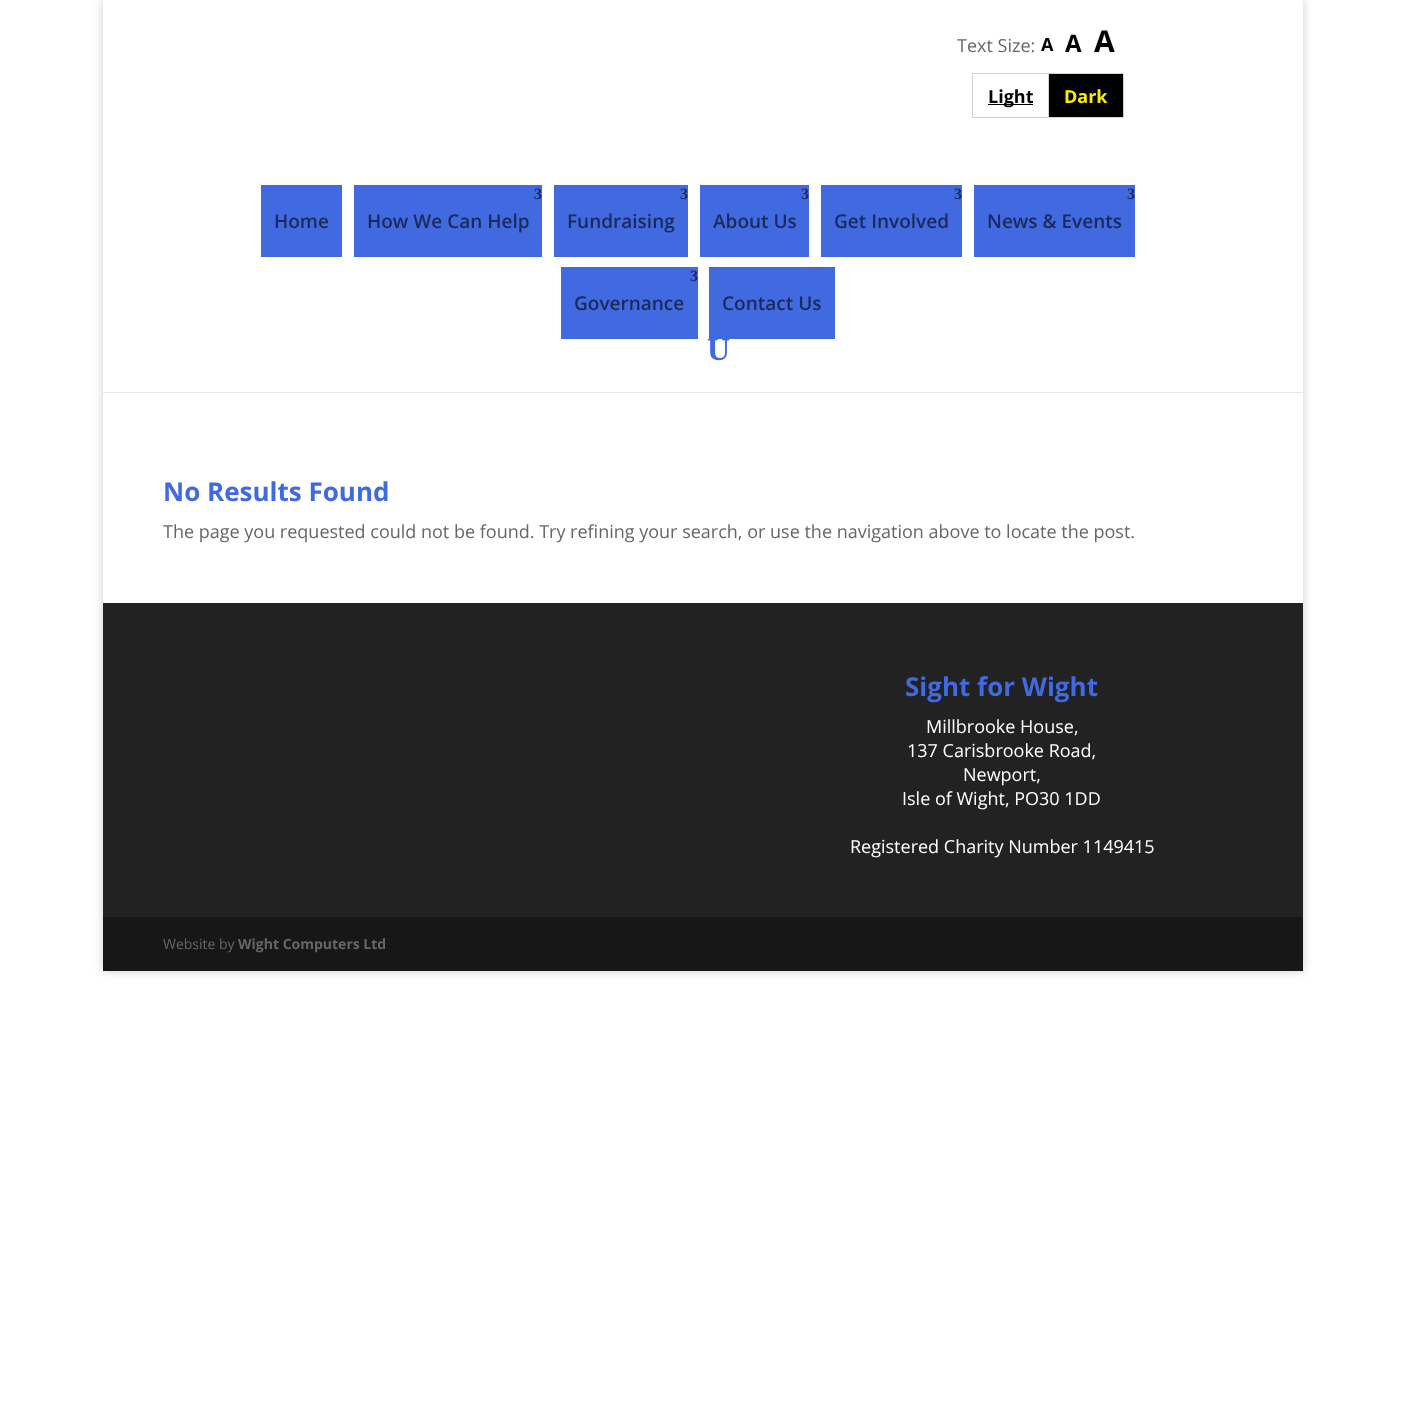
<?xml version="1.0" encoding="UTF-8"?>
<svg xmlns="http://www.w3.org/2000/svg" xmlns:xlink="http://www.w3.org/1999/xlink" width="1406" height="1401">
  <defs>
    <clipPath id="clip1"><path d="M 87 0 h 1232 v 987 h -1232 z m 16 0 h 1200 v 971 h -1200 z" clip-rule="evenodd" /></clipPath>
  </defs>
  <rect width="100%" height="100%" fill="#ffffff" />
  <g clip-path="url(#clip1)">
    <rect x="103" width="1200" height="971" fill="#000000" fill-opacity="0.2" filter="blur(5px)" />
  </g>
  <rect x="103" y="392" width="1200" height="1" fill="#e6e6e6" />
  <rect x="972" y="73" width="76" height="1" fill="#d2d2d2" />
  <rect x="972" y="117" width="76" height="1" fill="#d2d2d2" />
  <rect x="972" y="73" width="1" height="45" fill="#d2d2d2" />
  <rect x="988" y="104" width="45" height="1" fill="#000000" />
  <rect x="1048.5" y="73.5" width="75" height="44" fill="#000000" stroke="#d2d2d2" />
  <rect x="261" y="185" width="81" height="72" fill="#4169e0" />
  <rect x="354" y="185" width="188" height="72" fill="#4169e0" />
  <rect x="554" y="185" width="134" height="72" fill="#4169e0" />
  <rect x="700" y="185" width="109" height="72" fill="#4169e0" />
  <rect x="821" y="185" width="141" height="72" fill="#4169e0" />
  <rect x="974" y="185" width="161" height="72" fill="#4169e0" />
  <rect x="561" y="267" width="137" height="72" fill="#4169e0" />
  <rect x="709" y="267" width="126" height="72" fill="#4169e0" />
  <rect x="103" y="603" width="1200" height="314" fill="#222222" />
  <rect x="103" y="917" width="1200" height="54" fill="#171717" />
  <text x="957" y="52" style="font-family: Open Sans; font-size: 18px; fill: #666666">Text Size:</text>
  <text x="1041" y="51" style="font-family: Open Sans; font-size: 18px; font-weight: bold; fill: #000000">A</text>
  <text x="1065" y="52" style="font-family: Open Sans; font-size: 24px; font-weight: bold; fill: #000000">A</text>
  <text x="1094" y="52" style="font-family: Open Sans; font-size: 30px; font-weight: bold; fill: #000000">A</text>
  <text x="988" y="103" style="font-family: Open Sans; font-size: 18px; font-weight: bold; fill: #000000">Light</text>
  <text x="1064" y="103" style="font-family: Open Sans; font-size: 18px; font-weight: bold; fill: #ffee00">Dark</text>
  <text x="274" y="228" style="font-family: Open Sans; font-size: 19px; font-weight: 600; fill: #1a2a5a">Home</text>
  <text x="534" y="199" style="font-family: Liberation Serif; font-size: 16px; font-weight: bold; fill: #1a2a5a">3</text>
  <text x="367" y="228" style="font-family: Open Sans; font-size: 19px; font-weight: 600; fill: #1a2a5a">How We Can Help</text>
  <text x="680" y="199" style="font-family: Liberation Serif; font-size: 16px; font-weight: bold; fill: #1a2a5a">3</text>
  <text x="567" y="228" style="font-family: Open Sans; font-size: 19px; font-weight: 600; fill: #1a2a5a">Fundraising</text>
  <text x="801" y="199" style="font-family: Liberation Serif; font-size: 16px; font-weight: bold; fill: #1a2a5a">3</text>
  <text x="713" y="228" style="font-family: Open Sans; font-size: 19px; font-weight: 600; fill: #1a2a5a">About Us</text>
  <text x="954" y="199" style="font-family: Liberation Serif; font-size: 16px; font-weight: bold; fill: #1a2a5a">3</text>
  <text x="834" y="228" style="font-family: Open Sans; font-size: 19px; font-weight: 600; fill: #1a2a5a">Get Involved</text>
  <text x="1127" y="199" style="font-family: Liberation Serif; font-size: 16px; font-weight: bold; fill: #1a2a5a">3</text>
  <text x="987" y="228" style="font-family: Open Sans; font-size: 19px; font-weight: 600; fill: #1a2a5a">News &amp; Events</text>
  <text x="690" y="281" style="font-family: Liberation Serif; font-size: 16px; font-weight: bold; fill: #1a2a5a">3</text>
  <text x="574" y="310" style="font-family: Open Sans; font-size: 19px; font-weight: 600; fill: #1a2a5a">Governance</text>
  <text x="722" y="310" style="font-family: Open Sans; font-size: 19px; font-weight: 600; fill: #1a2a5a">Contact Us</text>
  <text x="707" y="360" style="font-family: Liberation Serif; font-size: 32px; font-weight: bold; fill: #4169e0">U</text>
  <text x="163" y="501" style="font-family: Open Sans; font-size: 26px; font-weight: bold; fill: #4169e0">No Results Found</text>
  <text x="163" y="538" style="font-family: Open Sans; font-size: 18px; fill: #666666">The page you requested could not be found. Try refining your search, or use the navigation above to locate the post.</text>
  <text x="905" y="696" style="font-family: Open Sans; font-size: 26px; font-weight: bold; fill: #4169e0">Sight for Wight</text>
  <text x="926" y="733" style="font-family: Open Sans; font-size: 18px; fill: #ffffff">Millbrooke House,</text>
  <text x="907" y="757" style="font-family: Open Sans; font-size: 18px; fill: #ffffff">137 Carisbrooke Road,</text>
  <text x="963" y="781" style="font-family: Open Sans; font-size: 18px; fill: #ffffff">Newport,</text>
  <text x="902" y="805" style="font-family: Open Sans; font-size: 18px; fill: #ffffff">Isle of Wight, PO30 1DD</text>
  <text x="850" y="853" style="font-family: Open Sans; font-size: 18px; fill: #ffffff">Registered Charity Number 1149415</text>
  <text x="163" y="949" style="font-family: Open Sans; font-size: 14px; fill: #666666">Website by</text>
  <text x="238" y="949" style="font-family: Open Sans; font-size: 14px; font-weight: bold; fill: #666666">Wight Computers Ltd</text>
</svg>
